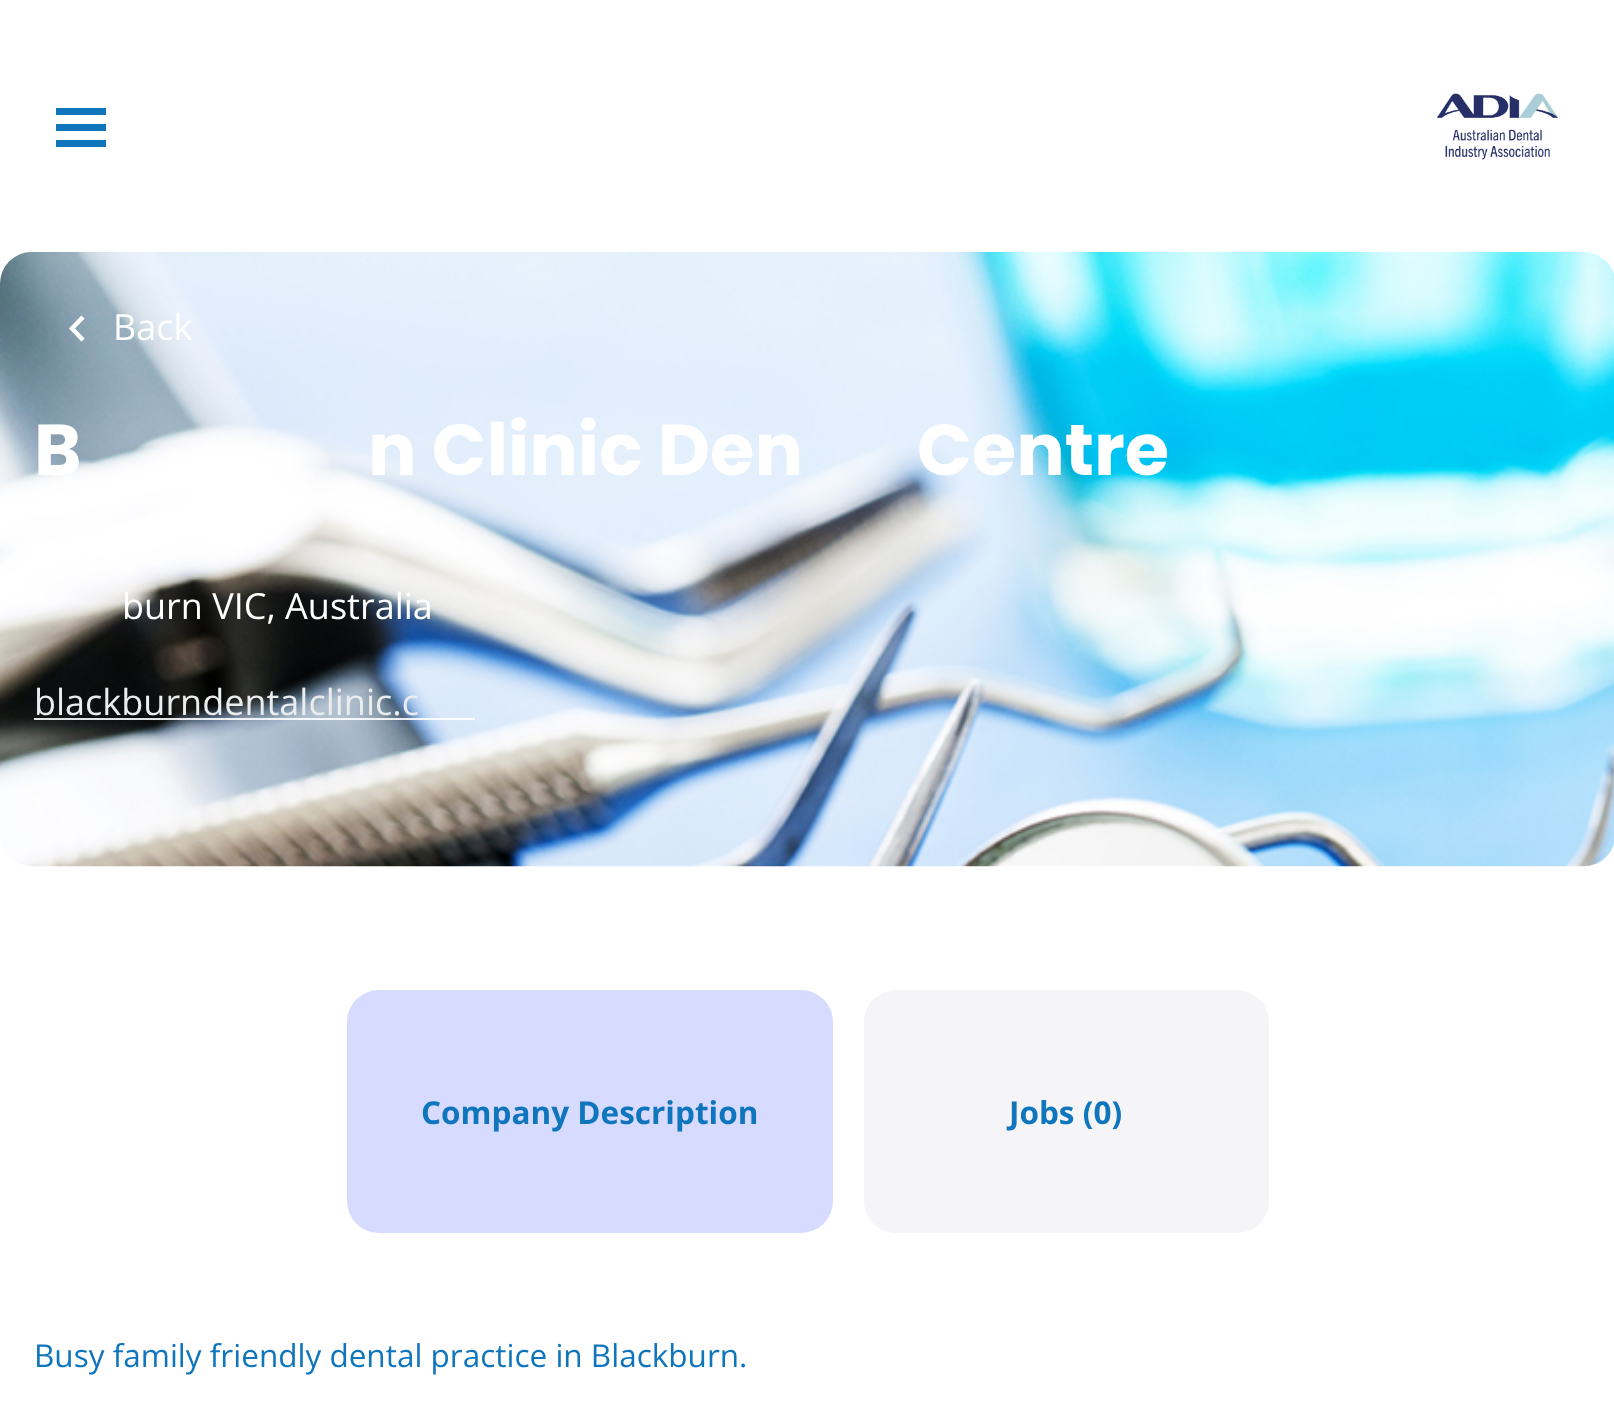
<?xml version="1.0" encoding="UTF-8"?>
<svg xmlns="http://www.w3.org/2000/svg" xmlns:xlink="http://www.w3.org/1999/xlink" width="1614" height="1402">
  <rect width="100%" height="100%" fill="#ffffff" />
  <rect x="56" y="108" width="50" height="7" fill="#0f75bc" />
  <rect x="56" y="124" width="50" height="7" fill="#0f75bc" />
  <rect x="56" y="140" width="50" height="7" fill="#0f75bc" />
  <image x="1436" y="93" width="122" height="67" xlink:href="image1.png" />
  <image x="0" y="252" width="1614" height="615" xlink:href="image2.png" />
  <path d="M 83 317 l -11 11.5 l 11 11.5" fill="none" stroke="#ffffff" stroke-width="4.5" />
  <rect x="34" y="718" width="441" height="2" fill="#ffffff" fill-opacity="0.88" />
  <rect x="347" y="990" width="486" height="243" rx="32" fill="#d7dbff" />
  <rect x="864" y="990" width="405" height="243" rx="32" fill="#f5f5f8" />
  <text x="113" y="340" style="font-family: Open Sans; font-size: 36px; fill: #ffffff">Back</text>
  <text x="34" y="475" style="font-family: Poppins; font-size: 72px; font-weight: bold; fill: #ffffff">B</text>
  <text x="368" y="475" style="font-family: Poppins; font-size: 72px; font-weight: bold; fill: #ffffff">n Clinic Den</text>
  <text x="917" y="475" style="font-family: Poppins; font-size: 72px; font-weight: bold; fill: #ffffff">Centre</text>
  <text x="122" y="619" style="font-family: Open Sans; font-size: 36px; fill: #ffffff">burn VIC, Australia</text>
  <text x="34" y="715" style="font-family: Open Sans; font-size: 36px; fill: #eaeced">blackburndentalclinic.c</text>
  <text x="421" y="1124" style="font-family: Open Sans; font-size: 31.5px; font-weight: bold; fill: #0f75bc">Company Description</text>
  <text x="1009" y="1124" style="font-family: Open Sans; font-size: 31.5px; font-weight: bold; fill: #0f75bc">Jobs (0)</text>
  <text x="34" y="1367" style="font-family: Open Sans; font-size: 31.5px; fill: #0f75bc">Busy family friendly dental practice in Blackburn.</text>
</svg>
